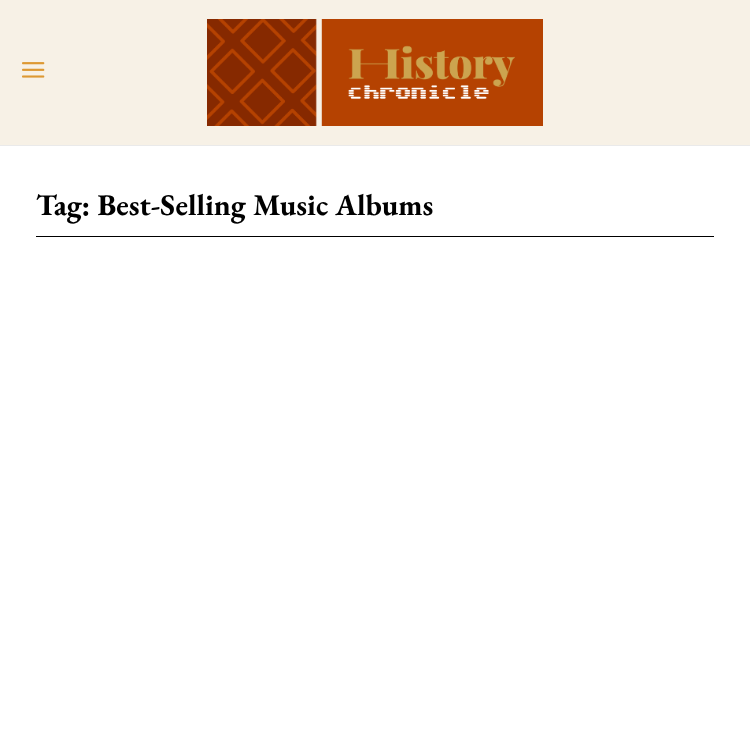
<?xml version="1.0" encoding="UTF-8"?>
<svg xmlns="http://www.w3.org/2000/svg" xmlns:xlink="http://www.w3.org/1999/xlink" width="750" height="747">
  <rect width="100%" height="100%" fill="#ffffff" />
  <rect y="145" width="750" height="1" fill="#eaeaea" />
  <rect width="750" height="145" fill="#f7f1e6" />
  <image x="22" y="62" width="23" height="16" xlink:href="image1.png" />
  <image x="207" y="19" width="336" height="107" xlink:href="image2.png" />
  <rect x="36" y="236" width="678" height="1" fill="#000000" />
  <text x="36" y="215" style="font-family: EB Garamond; font-size: 30px; font-weight: bold; fill: #000000">Tag: Best-Selling Music Albums</text>
</svg>
